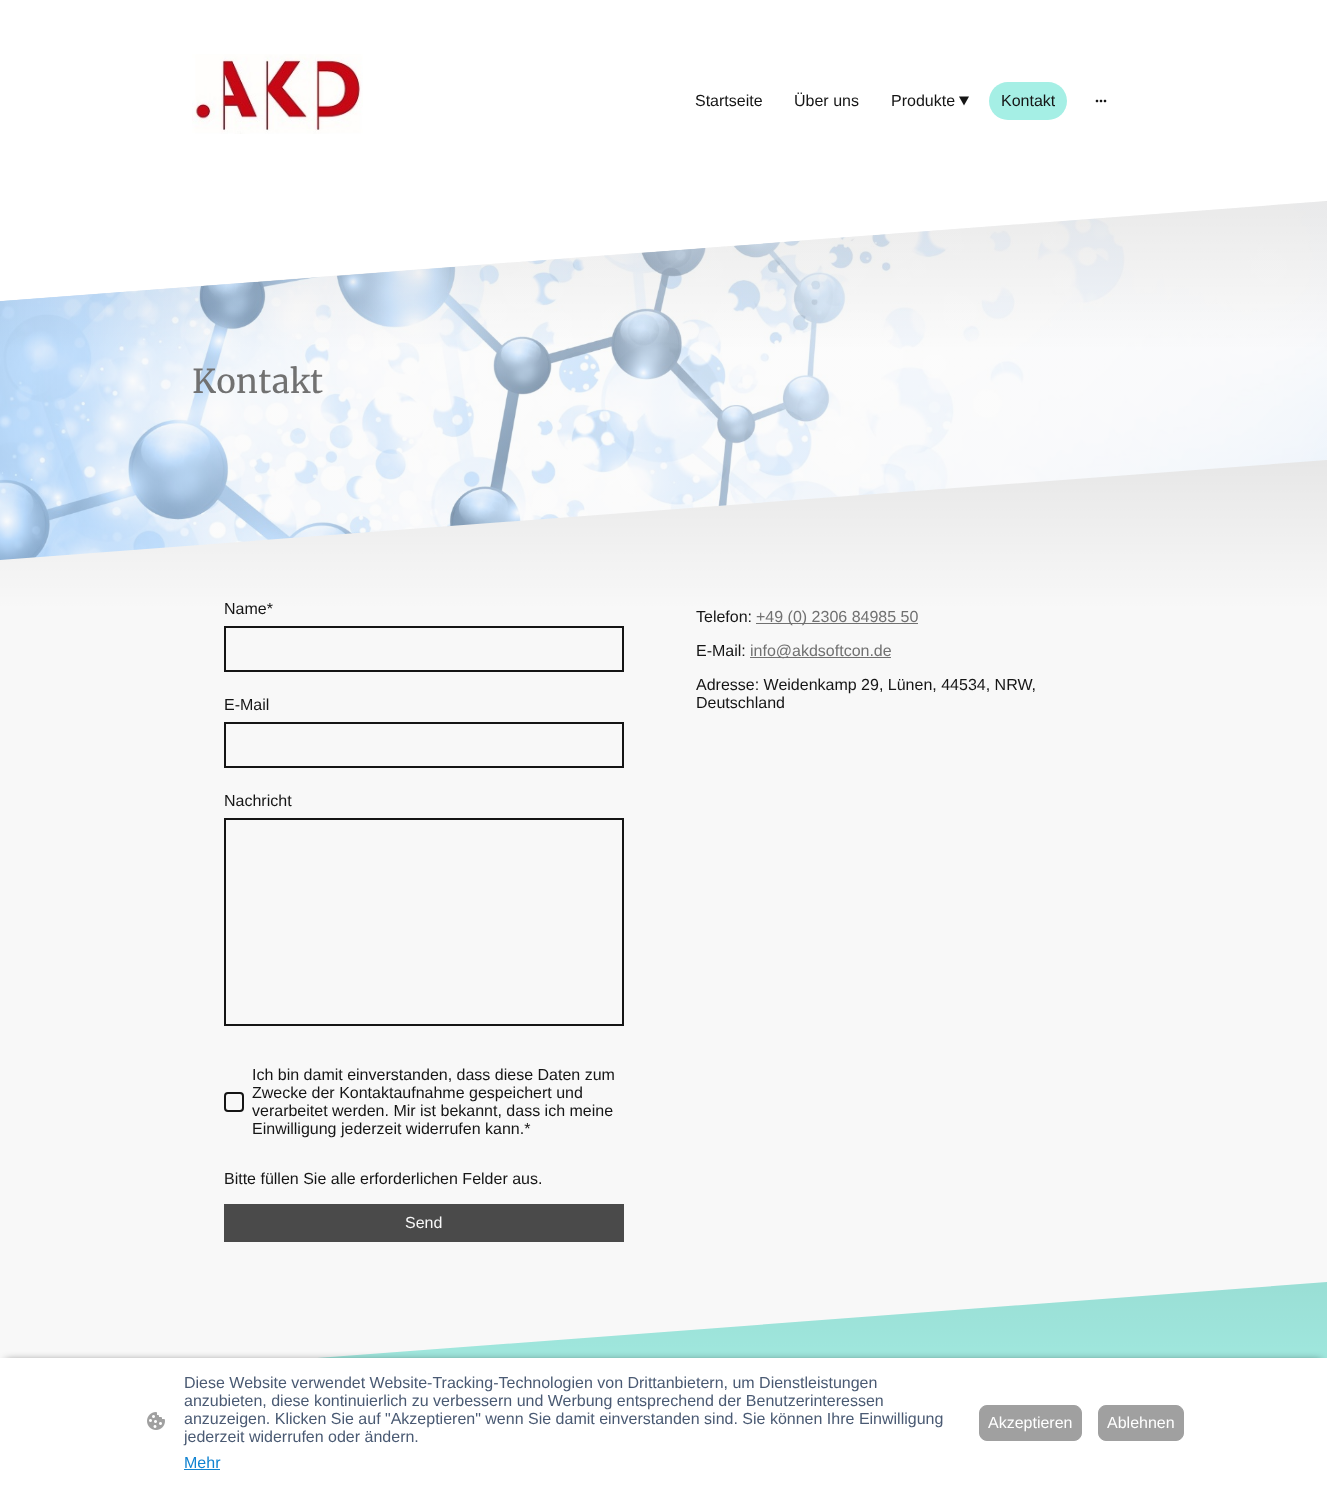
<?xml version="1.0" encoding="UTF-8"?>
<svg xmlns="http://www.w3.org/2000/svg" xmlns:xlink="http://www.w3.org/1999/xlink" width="1327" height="1488">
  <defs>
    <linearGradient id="g1" gradientUnits="userSpaceOnUse" x1="664" y1="201" x2="664" y2="351"><stop offset="0" stop-color="#000000" stop-opacity="0.07" /><stop offset="1" stop-color="#000000" stop-opacity="0" /></linearGradient>
    <linearGradient id="g2" gradientUnits="userSpaceOnUse" x1="664" y1="460" x2="664" y2="610"><stop offset="0" stop-color="#000000" stop-opacity="0.07" /><stop offset="1" stop-color="#000000" stop-opacity="0" /></linearGradient>
    <linearGradient id="g3" gradientUnits="userSpaceOnUse" x1="664" y1="1282" x2="664" y2="1432"><stop offset="0" stop-color="#000000" stop-opacity="0.07" /><stop offset="1" stop-color="#000000" stop-opacity="0" /></linearGradient>
    <clipPath id="clip1"><rect x="1001" y="92" width="54" height="18" /></clipPath>
  </defs>
  <rect width="100%" height="100%" fill="#ffffff" />
  <image x="192" y="54" width="171" height="80" xlink:href="image1.png" />
  <path d="M 969 96.5 l -5 9 l -5 -9 z" fill="#151515" />
  <rect x="989" y="82" width="78" height="38" rx="19" fill="#a5efe5" />
  <image x="1095" y="99" width="12" height="4" xlink:href="image2.png" />
  <path d="M 0 301 v 260 h 1327 v -360 z" fill="#f8f8f8" />
  <image x="0" y="202" width="1327" height="358" xlink:href="image3.png" />
  <path d="M 0 301 v 50 h 1327 v -150 z" fill="url(#g1)" />
  <path d="M 0 560 v 822 h 1327 v -922 z" fill="#f8f8f8" />
  <path d="M 0 560 v 50 h 1327 v -150 z" fill="url(#g2)" />
  <rect x="225" y="627" width="398" height="44" fill="none" stroke="#151515" stroke-width="2" />
  <rect x="225" y="723" width="398" height="44" fill="none" stroke="#151515" stroke-width="2" />
  <rect x="225" y="819" width="398" height="206" fill="none" stroke="#151515" stroke-width="2" />
  <rect x="225" y="1093" width="18" height="18" rx="3" fill="none" stroke="#151515" stroke-width="2" />
  <rect x="224" y="1204" width="400" height="38" fill="#4a4a4a" />
  <rect x="756" y="623" width="162" height="1" fill="#717171" />
  <rect x="750" y="657" width="141" height="1" fill="#717171" />
  <path d="M 0 1382 v 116 h 1327 v -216 z" fill="#a5efe5" />
  <path d="M 0 1382 v 50 h 1327 v -150 z" fill="url(#g3)" />
  <rect x="6" y="1361" width="1315" height="118" fill="#000000" fill-opacity="0.63" filter="blur(4px)" />
  <rect y="1358" width="1327" height="130" fill="#ffffff" />
  <image x="147" y="1412" width="18" height="18" xlink:href="image4.png" />
  <rect x="184" y="1469" width="36" height="1" fill="#1183d1" />
  <rect x="979.5" y="1405.5" width="102" height="35" rx="7.5" fill="#a0a0a0" stroke="#a0a0a0" />
  <rect x="1098.5" y="1405.5" width="85" height="35" rx="7.5" fill="#a0a0a0" stroke="#a0a0a0" />
  <text x="695" y="106" style="font-family: Liberation Sans; font-size: 16px; fill: #151515">Startseite</text>
  <text x="794" y="106" style="font-family: Liberation Sans; font-size: 16px; fill: #151515">Über uns</text>
  <text x="891" y="106" style="font-family: Liberation Sans; font-size: 16px; fill: #151515">Produkte</text>
  <g clip-path="url(#clip1)">
    <text x="1001" y="106" style="font-family: Liberation Sans; font-size: 16px; fill: #151515">Kontakt</text>
  </g>
  <text x="192" y="393" style="font-family: Merriweather; font-size: 33px; fill: #717171">Kontakt</text>
  <text x="224" y="614" style="font-family: Liberation Sans; font-size: 16px; fill: #151515">Name*</text>
  <text x="224" y="710" style="font-family: Liberation Sans; font-size: 16px; fill: #151515">E-Mail</text>
  <text x="224" y="806" style="font-family: Liberation Sans; font-size: 16px; fill: #151515">Nachricht</text>
  <text x="252" y="1080" style="font-family: Liberation Sans; font-size: 16px; fill: #151515">Ich bin damit einverstanden, dass diese Daten zum</text>
  <text x="252" y="1098" style="font-family: Liberation Sans; font-size: 16px; fill: #151515">Zwecke der Kontaktaufnahme gespeichert und</text>
  <text x="252" y="1116" style="font-family: Liberation Sans; font-size: 16px; fill: #151515">verarbeitet werden. Mir ist bekannt, dass ich meine</text>
  <text x="252" y="1134" style="font-family: Liberation Sans; font-size: 16px; fill: #151515">Einwilligung jederzeit widerrufen kann.*</text>
  <text x="224" y="1184" style="font-family: Liberation Sans; font-size: 16px; fill: #151515">Bitte füllen Sie alle erforderlichen Felder aus.</text>
  <text x="405" y="1228" style="font-family: Liberation Sans; font-size: 16px; fill: #f8f8f8">Send</text>
  <text x="696" y="622" style="font-family: Liberation Sans; font-size: 16px; fill: #151515">Telefon:</text>
  <text x="756" y="622" style="font-family: Liberation Sans; font-size: 16px; fill: #717171">+49 (0) 2306 84985 50</text>
  <text x="696" y="656" style="font-family: Liberation Sans; font-size: 16px; fill: #151515">E-Mail:</text>
  <text x="750" y="656" style="font-family: Liberation Sans; font-size: 16px; fill: #717171">info@akdsoftcon.de</text>
  <text x="696" y="690" style="font-family: Liberation Sans; font-size: 16px; fill: #151515">Adresse: Weidenkamp 29, Lünen, 44534, NRW,</text>
  <text x="696" y="708" style="font-family: Liberation Sans; font-size: 16px; fill: #151515">Deutschland</text>
  <text x="184" y="1388" style="font-family: Liberation Sans; font-size: 16px; fill: #4a5a73">Diese Website verwendet Website-Tracking-Technologien von Drittanbietern, um Dienstleistungen</text>
  <text x="184" y="1406" style="font-family: Liberation Sans; font-size: 16px; fill: #4a5a73">anzubieten, diese kontinuierlich zu verbessern und Werbung entsprechend der Benutzerinteressen</text>
  <text x="184" y="1424" style="font-family: Liberation Sans; font-size: 16px; fill: #4a5a73">anzuzeigen. Klicken Sie auf "Akzeptieren" wenn Sie damit einverstanden sind. Sie können Ihre Einwilligung</text>
  <text x="184" y="1442" style="font-family: Liberation Sans; font-size: 16px; fill: #4a5a73">jederzeit widerrufen oder ändern.</text>
  <text x="184" y="1468" style="font-family: Liberation Sans; font-size: 16px; fill: #1183d1">Mehr</text>
  <text x="988" y="1428" style="font-family: Liberation Sans; font-size: 16px; fill: #ffffff">Akzeptieren</text>
  <text x="1107" y="1428" style="font-family: Liberation Sans; font-size: 16px; fill: #ffffff">Ablehnen</text>
</svg>
